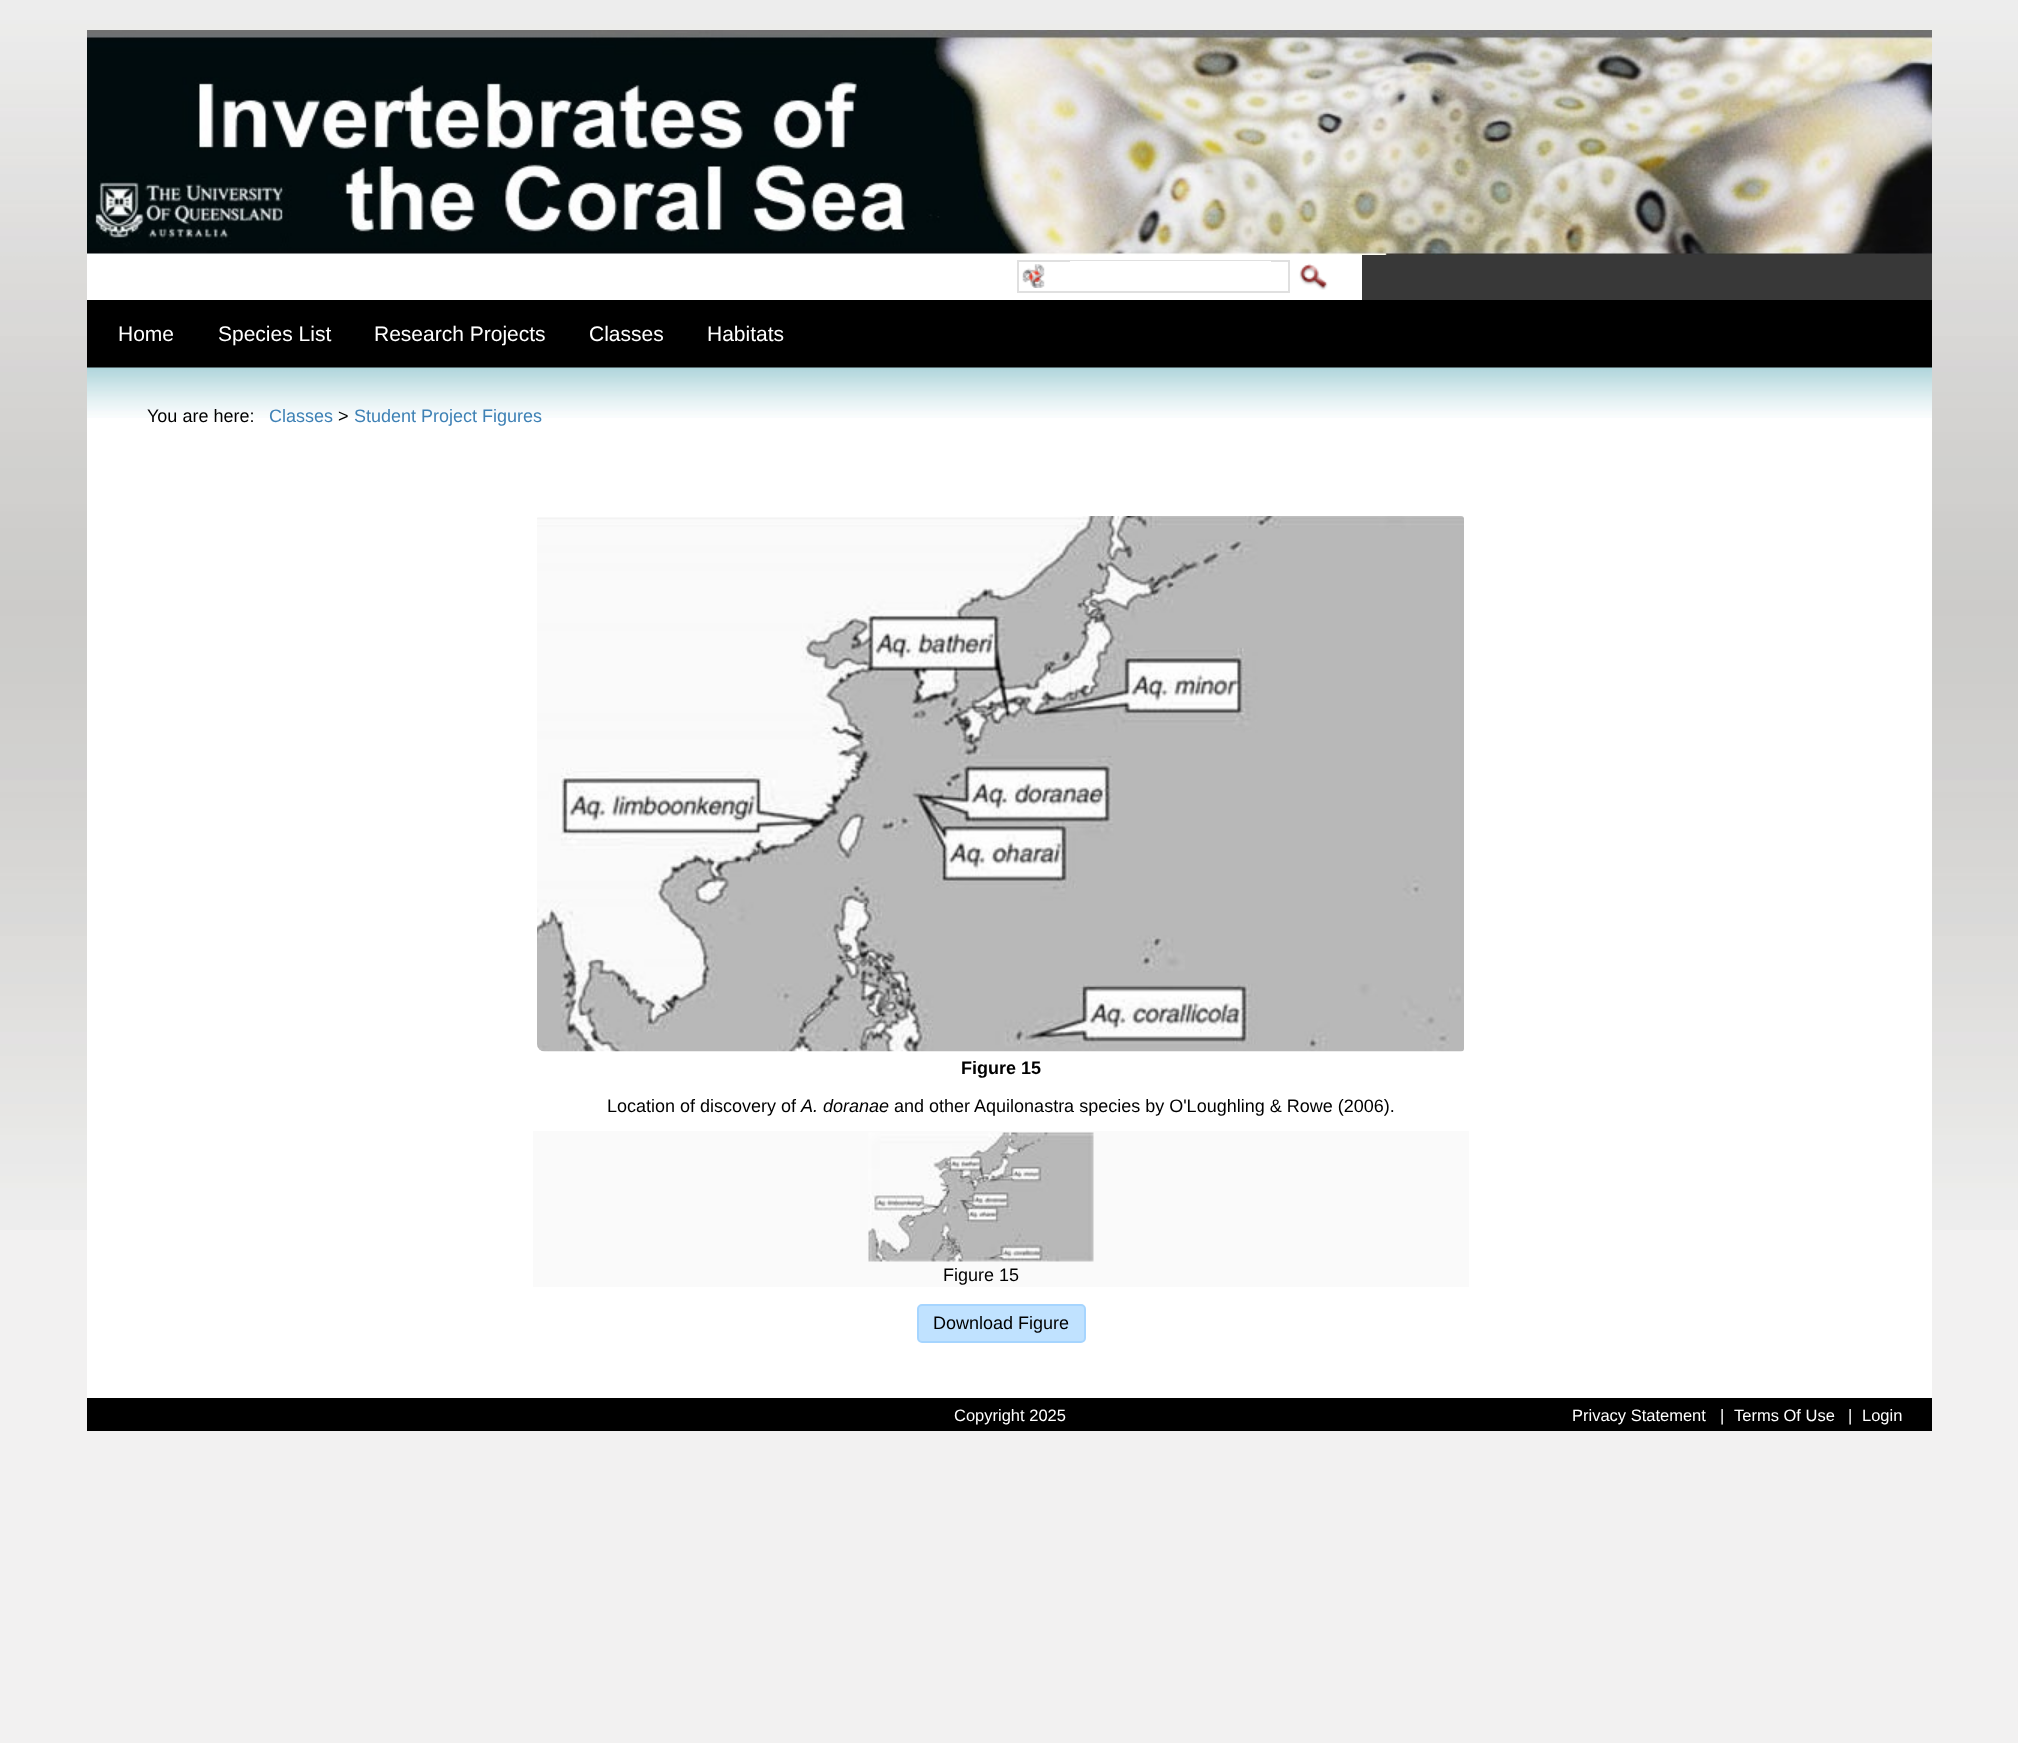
<?xml version="1.0" encoding="UTF-8"?>
<svg xmlns="http://www.w3.org/2000/svg" xmlns:xlink="http://www.w3.org/1999/xlink" width="2018" height="1743">
  <rect width="100%" height="100%" fill="#f2f1f1" />
  <image x="0" y="0" width="2018" height="1230" xlink:href="image1.png" />
  <rect x="87" y="255" width="1845" height="1143" fill="#ffffff" />
  <image x="87" y="30" width="1845" height="225" xlink:href="image2.png" />
  <rect x="1018" y="261" width="271" height="31" fill="none" stroke="#e0e0e0" stroke-width="2" />
  <rect x="1070" y="261" width="201" height="1" fill="#ffffff" />
  <image x="1022" y="264" width="23" height="24" xlink:href="image3.png" />
  <image x="1299" y="263" width="29" height="27" xlink:href="image4.png" />
  <rect x="1362" y="255" width="570" height="45" fill="#383838" />
  <rect x="87" y="300" width="1845" height="68" fill="#000000" />
  <image x="87" y="367" width="1845" height="51" xlink:href="image5.png" />
  <image x="537" y="516" width="927" height="536" xlink:href="image6.png" />
  <rect x="533" y="1131" width="936" height="156" fill="#fafafa" />
  <image x="868" y="1132" width="226" height="130" xlink:href="image7.png" />
  <rect x="918" y="1305" width="167" height="37" rx="4" fill="#c0e2ff" stroke="#a6d5ff" stroke-width="2" />
  <rect x="87" y="1398" width="1845" height="33" fill="#000000" />
  <text x="118" y="341" style="font-family: Liberation Sans; font-size: 21px; fill: #ffffff">Home</text>
  <text x="218" y="341" style="font-family: Liberation Sans; font-size: 21px; fill: #ffffff">Species List</text>
  <text x="374" y="341" style="font-family: Liberation Sans; font-size: 21px; fill: #ffffff">Research Projects</text>
  <text x="589" y="341" style="font-family: Liberation Sans; font-size: 21px; fill: #ffffff">Classes</text>
  <text x="707" y="341" style="font-family: Liberation Sans; font-size: 21px; fill: #ffffff">Habitats</text>
  <text x="147" y="422" style="font-family: Liberation Sans; font-size: 18px; fill: #000000">You are here:</text>
  <text x="269" y="422" style="font-family: Liberation Sans; font-size: 18px; fill: #3e81b5">Classes</text>
  <text x="338" y="422" style="font-family: Liberation Sans; font-size: 18px; fill: #000000">&gt;</text>
  <text x="354" y="422" style="font-family: Liberation Sans; font-size: 18px; fill: #3e81b5">Student Project Figures</text>
  <text x="961" y="1074" style="font-family: Liberation Sans; font-size: 18px; font-weight: bold; fill: #000000">Figure 15</text>
  <text x="607" y="1112" style="font-family: Liberation Sans; font-size: 18px; fill: #000000">Location of discovery of</text>
  <text x="801" y="1112" style="font-family: Liberation Sans; font-size: 18px; font-style: italic; fill: #000000">A. doranae</text>
  <text x="894" y="1112" style="font-family: Liberation Sans; font-size: 18px; fill: #000000">and other Aquilonastra species by O'Loughling &amp; Rowe (2006).</text>
  <text x="943" y="1281" style="font-family: Liberation Sans; font-size: 18px; fill: #000000">Figure 15</text>
  <text x="933" y="1329" style="font-family: Liberation Sans; font-size: 18px; fill: #000000">Download Figure</text>
  <text x="954" y="1421" style="font-family: Liberation Sans; font-size: 16.5px; fill: #ffffff">Copyright 2025</text>
  <text x="1572" y="1421" style="font-family: Liberation Sans; font-size: 16.5px; fill: #ffffff">Privacy Statement</text>
  <text x="1720" y="1421" style="font-family: Liberation Sans; font-size: 16.5px; fill: #ffffff">|</text>
  <text x="1734" y="1421" style="font-family: Liberation Sans; font-size: 16.5px; fill: #ffffff">Terms Of Use</text>
  <text x="1848" y="1421" style="font-family: Liberation Sans; font-size: 16.5px; fill: #ffffff">|</text>
  <text x="1862" y="1421" style="font-family: Liberation Sans; font-size: 16.5px; fill: #ffffff">Login</text>
</svg>
